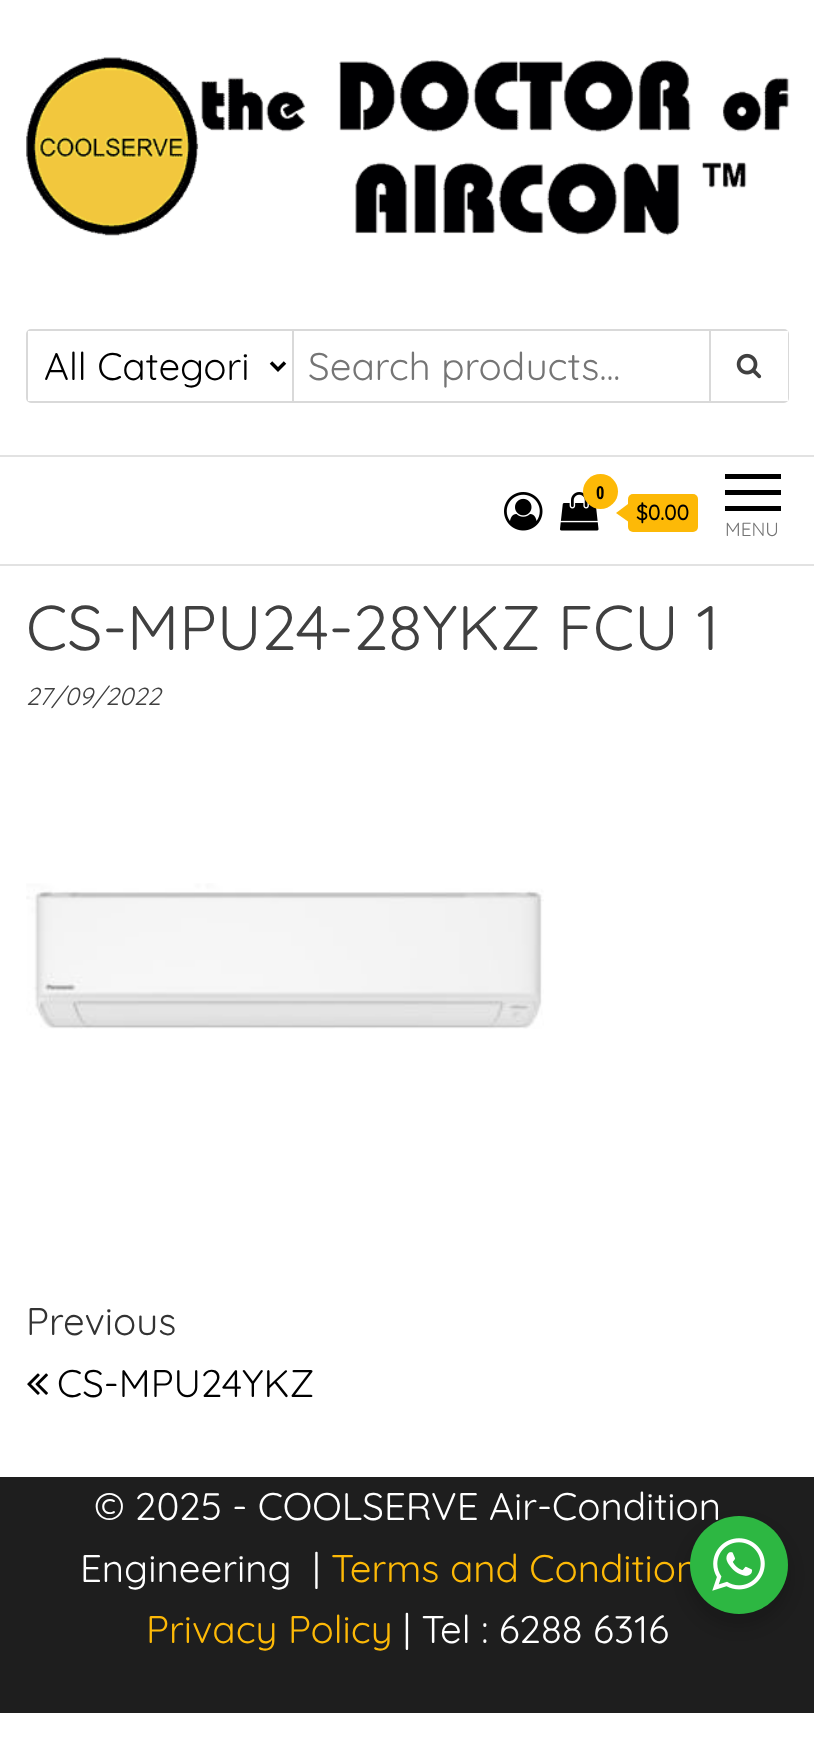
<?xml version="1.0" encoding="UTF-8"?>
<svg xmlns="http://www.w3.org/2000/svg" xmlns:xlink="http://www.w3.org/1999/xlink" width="814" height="1752">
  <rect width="100%" height="100%" fill="#ffffff" />
  <image x="26" y="57" width="764" height="179" xlink:href="image1.png" />
  <rect x="27" y="330" width="761" height="72" rx="4" fill="none" stroke="#d9d9d9" stroke-width="2" />
  <rect x="28" y="331" width="3" height="70" fill="#ffffff" />
  <rect x="292" y="331" width="2" height="70" fill="#d9d9d9" />
  <path d="M 271 362.5 l 7 7 l 7 -7" fill="none" stroke="#000000" stroke-width="3.5" />
  <rect x="784" y="331" width="4" height="70" fill="#ffffff" />
  <rect x="709" y="331" width="2" height="70" fill="#d9d9d9" />
  <image x="736" y="353" width="26" height="26" xlink:href="image2.png" />
  <rect y="455" width="814" height="2" fill="#e2e2e2" />
  <rect y="564" width="814" height="2" fill="#e2e2e2" />
  <image x="504" y="492" width="39" height="39" xlink:href="image3.png" />
  <image x="560" y="492" width="39" height="39" xlink:href="image4.png" />
  <circle cx="600.5" cy="491.5" r="17.5" fill="#fdb907" />
  <rect x="628" y="494" width="70" height="38" rx="5" fill="#fdb907" />
  <path d="M 628 504 v 17.5 l -12 -8.5 z" fill="#fdb907" />
  <rect x="725" y="474" width="56" height="5" fill="#000000" />
  <rect x="725" y="490" width="56" height="5" fill="#000000" />
  <rect x="725" y="506" width="56" height="5" fill="#000000" />
  <image x="26" y="883" width="518" height="146" xlink:href="image5.png" />
  <image x="27" y="1373" width="21" height="22" xlink:href="image6.png" />
  <rect y="1477" width="814" height="236" fill="#1e1e1e" />
  <rect x="686" y="1523" width="105" height="105" rx="52.5" fill="#000000" fill-opacity="0.14" filter="blur(7px)" />
  <text x="44" y="380" style="font-family: Quicksand; font-size: 38.5px; fill: #000000">All Categori</text>
  <text x="308" y="380" style="font-family: Quicksand; font-size: 38.5px; fill: #757575">Search products...</text>
  <text x="596" y="499" style="font-family: Open Sans Condensed; font-size: 18px; font-weight: bold; fill: #000000">0</text>
  <text x="636" y="520" style="font-family: Quicksand; font-size: 21px; font-weight: bold; fill: #000000">$0.00</text>
  <text x="725" y="536" style="font-family: Quicksand; font-size: 19px; fill: #757575">MENU</text>
  <text x="26" y="650" style="font-family: Quicksand; font-size: 63px; fill: #404040">CS-MPU24-28YKZ FCU 1</text>
  <text x="26" y="705" style="font-family: Quicksand; font-size: 24.5px; font-style: italic; fill: #404040">27/09/2022</text>
  <text x="26" y="1335" style="font-family: Quicksand; font-size: 38.5px; fill: #333333">Previous</text>
  <text x="57" y="1397" style="font-family: Quicksand; font-size: 38.5px; fill: #000000">CS-MPU24YKZ</text>
  <text x="94" y="1520" style="font-family: Quicksand; font-size: 38.5px; fill: #ffffff">© 2025 - COOLSERVE Air-Condition</text>
  <text x="80" y="1582" style="font-family: Quicksand; font-size: 38.5px; fill: #ffffff" xml:space="preserve">Engineering  |</text>
  <text x="331" y="1582" style="font-family: Quicksand; font-size: 38.5px; fill: #fdb907">Terms and Condition</text>
  <text x="146" y="1643" style="font-family: Quicksand; font-size: 38.5px; fill: #fdb907">Privacy Policy</text>
  <text x="403" y="1643" style="font-family: Quicksand; font-size: 38.5px; fill: #ffffff">| Tel : 6288 6316</text>
  <circle cx="739" cy="1565" r="49" fill="#2db742" />
  <image x="712" y="1538" width="53" height="53" xlink:href="image7.png" />
</svg>
